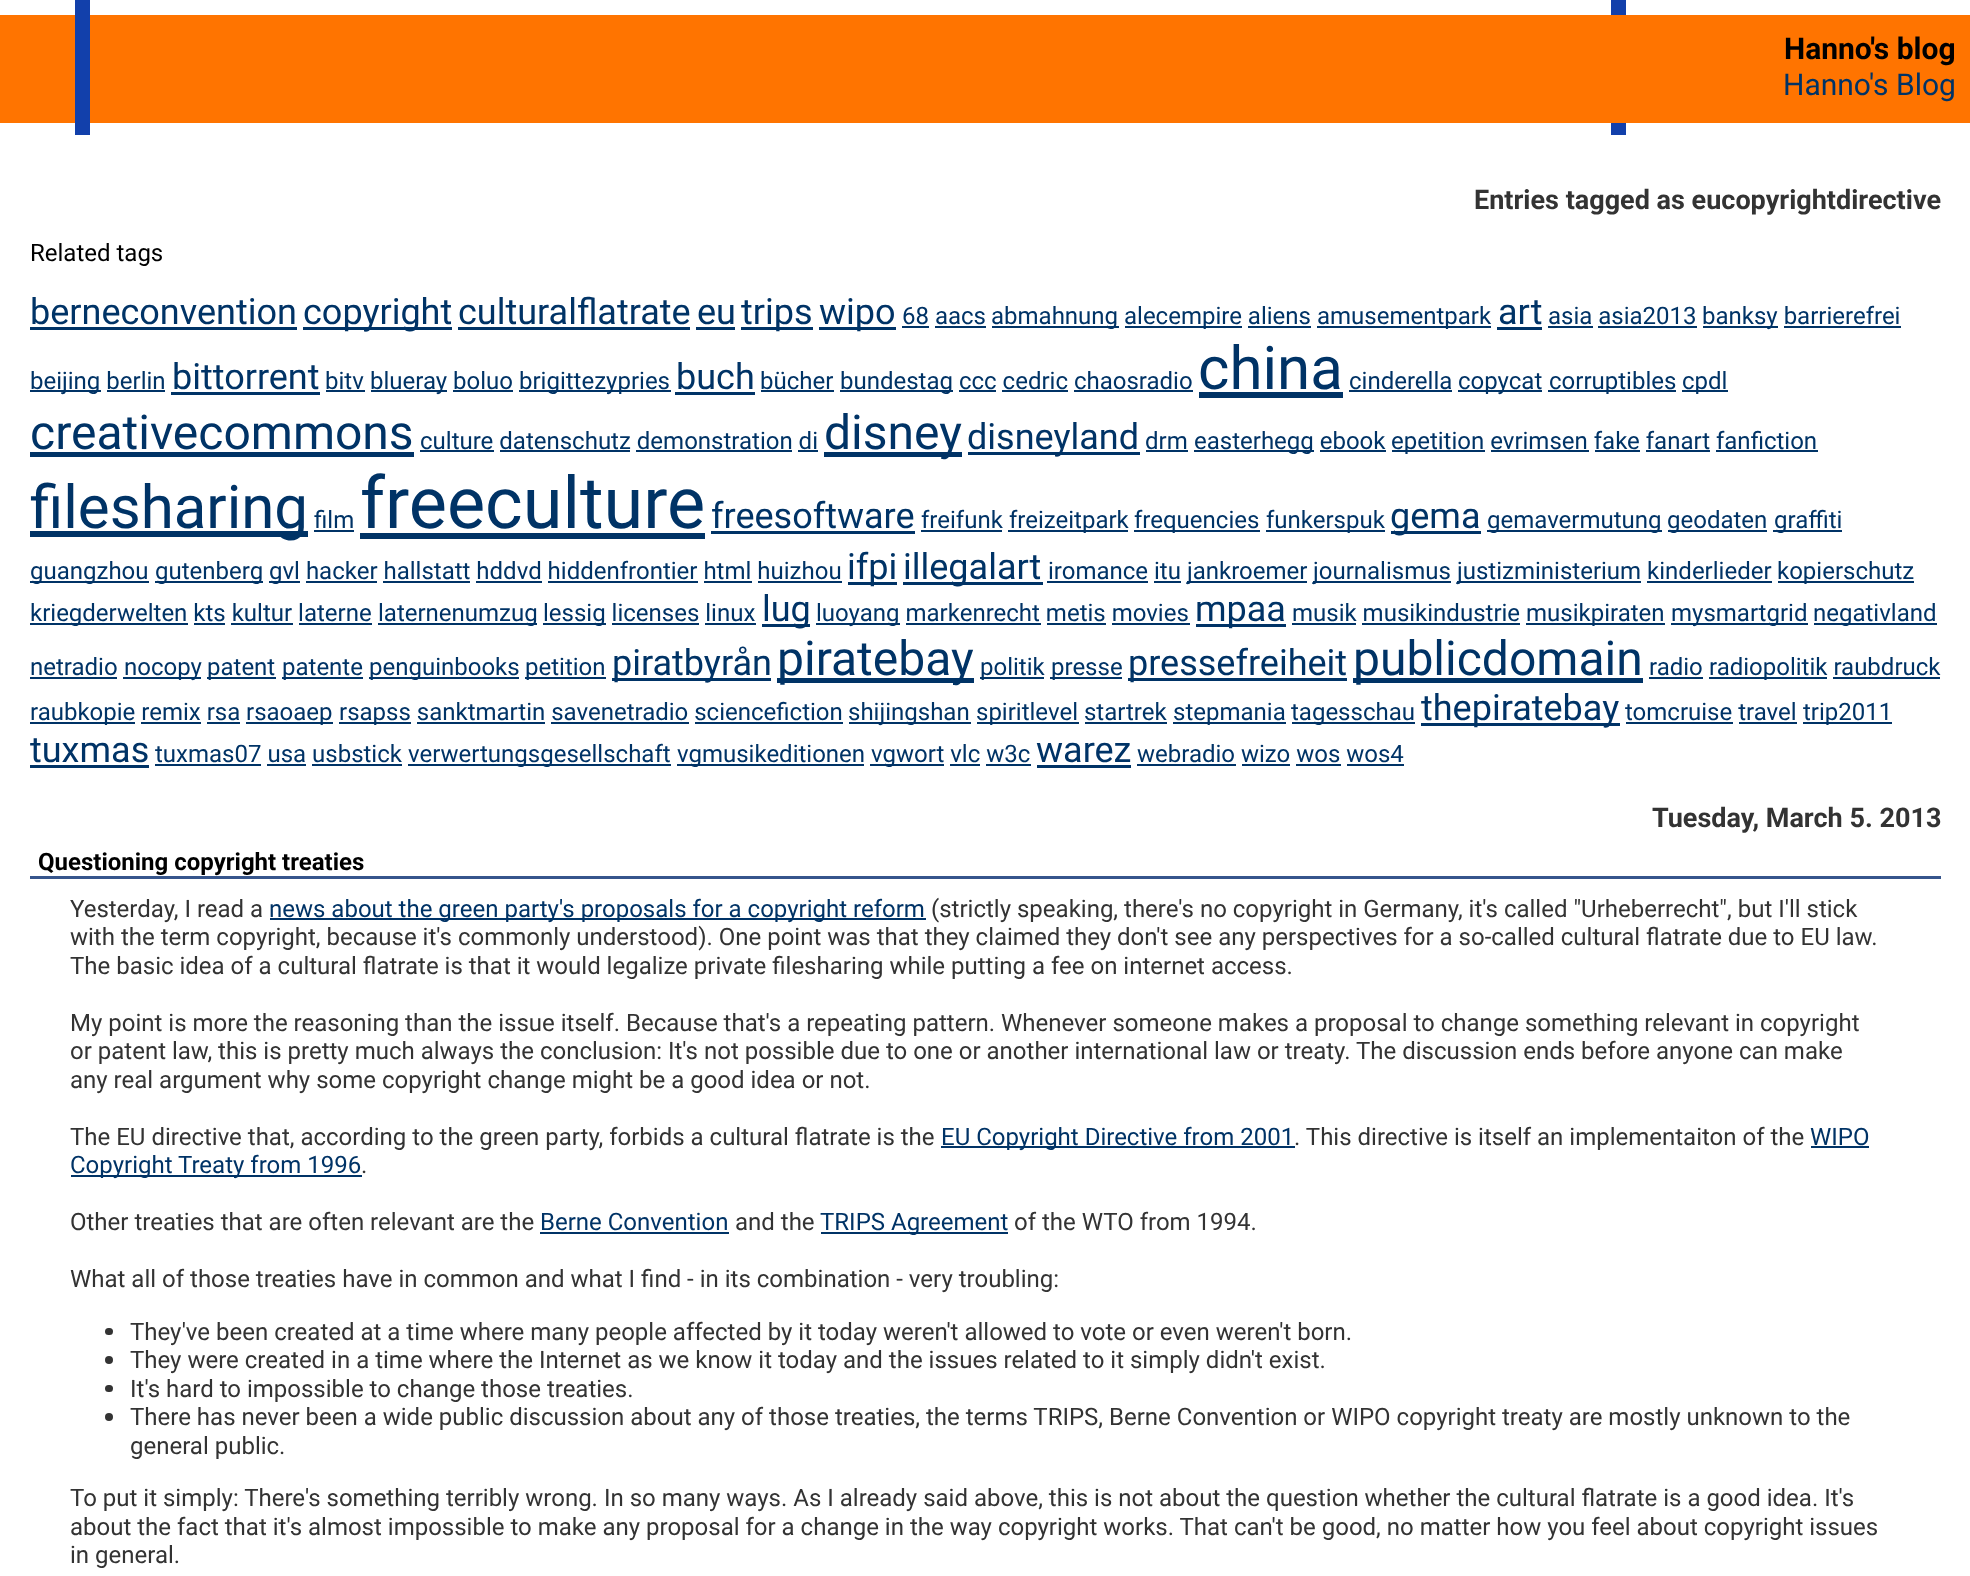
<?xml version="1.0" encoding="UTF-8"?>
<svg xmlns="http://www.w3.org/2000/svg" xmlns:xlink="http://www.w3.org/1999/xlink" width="1970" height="1576">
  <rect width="100%" height="100%" fill="#ffffff" />
  <rect x="1611" width="15" height="135" fill="#1240ab" />
  <rect y="15" width="1970" height="108" fill="#ff7400" />
  <rect x="75" width="15" height="135" fill="#1240ab" />
  <rect x="30" y="327" width="267" height="3" fill="#003366" />
  <rect x="303" y="327" width="149" height="3" fill="#003366" />
  <rect x="458" y="327" width="232" height="3" fill="#003366" />
  <rect x="696" y="327" width="39" height="3" fill="#003366" />
  <rect x="741" y="327" width="72" height="3" fill="#003366" />
  <rect x="819" y="327" width="77" height="3" fill="#003366" />
  <rect x="902" y="326" width="27" height="2" fill="#003366" />
  <rect x="992" y="326" width="127" height="2" fill="#003366" />
  <rect x="1125" y="326" width="117" height="2" fill="#003366" />
  <rect x="1317" y="326" width="174" height="2" fill="#003366" />
  <rect x="1497" y="327" width="45" height="3" fill="#003366" />
  <rect x="1548" y="326" width="45" height="2" fill="#003366" />
  <rect x="1703" y="326" width="75" height="2" fill="#003366" />
  <rect x="935" y="326" width="51" height="2" fill="#003366" />
  <rect x="1248" y="326" width="63" height="2" fill="#003366" />
  <rect x="1598" y="326" width="99" height="2" fill="#003366" />
  <rect x="1784" y="326" width="117" height="2" fill="#003366" />
  <rect x="30" y="390" width="71" height="2" fill="#003366" />
  <rect x="171" y="392" width="149" height="3" fill="#003366" />
  <rect x="326" y="390" width="39" height="2" fill="#003366" />
  <rect x="371" y="390" width="76" height="2" fill="#003366" />
  <rect x="519" y="390" width="152" height="2" fill="#003366" />
  <rect x="675" y="392" width="80" height="3" fill="#003366" />
  <rect x="761" y="390" width="73" height="2" fill="#003366" />
  <rect x="840" y="390" width="113" height="2" fill="#003366" />
  <rect x="1199" y="392" width="144" height="6" fill="#003366" />
  <rect x="1349" y="390" width="103" height="2" fill="#003366" />
  <rect x="1458" y="390" width="84" height="2" fill="#003366" />
  <rect x="1548" y="390" width="128" height="2" fill="#003366" />
  <rect x="1682" y="390" width="46" height="2" fill="#003366" />
  <rect x="107" y="390" width="58" height="2" fill="#003366" />
  <rect x="453" y="390" width="60" height="2" fill="#003366" />
  <rect x="959" y="390" width="37" height="2" fill="#003366" />
  <rect x="1002" y="390" width="66" height="2" fill="#003366" />
  <rect x="1074" y="390" width="119" height="2" fill="#003366" />
  <rect x="30" y="452" width="384" height="5" fill="#003366" />
  <rect x="420" y="450" width="74" height="2" fill="#003366" />
  <rect x="824" y="452" width="138" height="5" fill="#003366" />
  <rect x="968" y="452" width="172" height="3" fill="#003366" />
  <rect x="1146" y="450" width="42" height="2" fill="#003366" />
  <rect x="1194" y="450" width="120" height="2" fill="#003366" />
  <rect x="1392" y="450" width="93" height="2" fill="#003366" />
  <rect x="500" y="450" width="130" height="2" fill="#003366" />
  <rect x="636" y="450" width="156" height="2" fill="#003366" />
  <rect x="798" y="450" width="20" height="2" fill="#003366" />
  <rect x="1320" y="450" width="66" height="2" fill="#003366" />
  <rect x="1491" y="450" width="98" height="2" fill="#003366" />
  <rect x="1595" y="450" width="45" height="2" fill="#003366" />
  <rect x="1646" y="450" width="64" height="2" fill="#003366" />
  <rect x="1716" y="450" width="102" height="2" fill="#003366" />
  <rect x="30" y="531" width="278" height="6" fill="#003366" />
  <rect x="314" y="530" width="40" height="2" fill="#003366" />
  <rect x="360" y="533" width="345" height="6" fill="#003366" />
  <rect x="711" y="531" width="204" height="3" fill="#003366" />
  <rect x="921" y="530" width="81" height="2" fill="#003366" />
  <rect x="1008" y="530" width="120" height="2" fill="#003366" />
  <rect x="1134" y="530" width="126" height="2" fill="#003366" />
  <rect x="1266" y="530" width="119" height="2" fill="#003366" />
  <rect x="1391" y="531" width="90" height="3" fill="#003366" />
  <rect x="1487" y="530" width="175" height="2" fill="#003366" />
  <rect x="1668" y="530" width="99" height="2" fill="#003366" />
  <rect x="1773" y="530" width="69" height="2" fill="#003366" />
  <rect x="30" y="581" width="119" height="2" fill="#003366" />
  <rect x="155" y="581" width="108" height="2" fill="#003366" />
  <rect x="269" y="581" width="31" height="2" fill="#003366" />
  <rect x="848" y="582" width="49" height="3" fill="#003366" />
  <rect x="903" y="582" width="140" height="3" fill="#003366" />
  <rect x="1047" y="581" width="101" height="2" fill="#003366" />
  <rect x="1187" y="581" width="120" height="2" fill="#003366" />
  <rect x="1313" y="581" width="138" height="2" fill="#003366" />
  <rect x="1457" y="581" width="184" height="2" fill="#003366" />
  <rect x="1778" y="581" width="136" height="2" fill="#003366" />
  <rect x="306" y="581" width="71" height="2" fill="#003366" />
  <rect x="383" y="581" width="87" height="2" fill="#003366" />
  <rect x="476" y="581" width="66" height="2" fill="#003366" />
  <rect x="548" y="581" width="150" height="2" fill="#003366" />
  <rect x="704" y="581" width="48" height="2" fill="#003366" />
  <rect x="758" y="581" width="84" height="2" fill="#003366" />
  <rect x="1154" y="581" width="27" height="2" fill="#003366" />
  <rect x="1647" y="581" width="125" height="2" fill="#003366" />
  <rect x="30" y="623" width="158" height="2" fill="#003366" />
  <rect x="378" y="623" width="159" height="2" fill="#003366" />
  <rect x="543" y="623" width="63" height="2" fill="#003366" />
  <rect x="762" y="624" width="48" height="3" fill="#003366" />
  <rect x="816" y="623" width="84" height="2" fill="#003366" />
  <rect x="1196" y="624" width="90" height="3" fill="#003366" />
  <rect x="1292" y="623" width="64" height="2" fill="#003366" />
  <rect x="1526" y="623" width="139" height="2" fill="#003366" />
  <rect x="1671" y="623" width="137" height="2" fill="#003366" />
  <rect x="1814" y="623" width="123" height="2" fill="#003366" />
  <rect x="194" y="623" width="31" height="2" fill="#003366" />
  <rect x="231" y="623" width="62" height="2" fill="#003366" />
  <rect x="299" y="623" width="73" height="2" fill="#003366" />
  <rect x="612" y="623" width="87" height="2" fill="#003366" />
  <rect x="705" y="623" width="51" height="2" fill="#003366" />
  <rect x="906" y="623" width="135" height="2" fill="#003366" />
  <rect x="1047" y="623" width="59" height="2" fill="#003366" />
  <rect x="1112" y="623" width="78" height="2" fill="#003366" />
  <rect x="1362" y="623" width="158" height="2" fill="#003366" />
  <rect x="30" y="677" width="87" height="2" fill="#003366" />
  <rect x="123" y="677" width="78" height="2" fill="#003366" />
  <rect x="207" y="677" width="69" height="2" fill="#003366" />
  <rect x="282" y="677" width="81" height="2" fill="#003366" />
  <rect x="369" y="677" width="150" height="2" fill="#003366" />
  <rect x="525" y="677" width="81" height="2" fill="#003366" />
  <rect x="612" y="678" width="159" height="3" fill="#003366" />
  <rect x="777" y="678" width="197" height="5" fill="#003366" />
  <rect x="980" y="677" width="64" height="2" fill="#003366" />
  <rect x="1050" y="677" width="72" height="2" fill="#003366" />
  <rect x="1128" y="678" width="219" height="3" fill="#003366" />
  <rect x="1353" y="678" width="290" height="5" fill="#003366" />
  <rect x="1649" y="677" width="54" height="2" fill="#003366" />
  <rect x="1709" y="677" width="118" height="2" fill="#003366" />
  <rect x="1833" y="677" width="107" height="2" fill="#003366" />
  <rect x="30" y="722" width="105" height="2" fill="#003366" />
  <rect x="246" y="722" width="87" height="2" fill="#003366" />
  <rect x="339" y="722" width="72" height="2" fill="#003366" />
  <rect x="849" y="722" width="122" height="2" fill="#003366" />
  <rect x="977" y="722" width="102" height="2" fill="#003366" />
  <rect x="1173" y="722" width="113" height="2" fill="#003366" />
  <rect x="1292" y="722" width="123" height="2" fill="#003366" />
  <rect x="1421" y="723" width="199" height="3" fill="#003366" />
  <rect x="1626" y="722" width="107" height="2" fill="#003366" />
  <rect x="1803" y="722" width="89" height="2" fill="#003366" />
  <rect x="141" y="722" width="60" height="2" fill="#003366" />
  <rect x="207" y="722" width="33" height="2" fill="#003366" />
  <rect x="417" y="722" width="128" height="2" fill="#003366" />
  <rect x="551" y="722" width="138" height="2" fill="#003366" />
  <rect x="695" y="722" width="148" height="2" fill="#003366" />
  <rect x="1085" y="722" width="82" height="2" fill="#003366" />
  <rect x="1739" y="722" width="58" height="2" fill="#003366" />
  <rect x="30" y="765" width="119" height="3" fill="#003366" />
  <rect x="155" y="764" width="106" height="2" fill="#003366" />
  <rect x="408" y="764" width="263" height="2" fill="#003366" />
  <rect x="677" y="764" width="187" height="2" fill="#003366" />
  <rect x="870" y="764" width="74" height="2" fill="#003366" />
  <rect x="1037" y="765" width="94" height="3" fill="#003366" />
  <rect x="1137" y="764" width="99" height="2" fill="#003366" />
  <rect x="267" y="764" width="39" height="2" fill="#003366" />
  <rect x="312" y="764" width="90" height="2" fill="#003366" />
  <rect x="950" y="764" width="30" height="2" fill="#003366" />
  <rect x="986" y="764" width="45" height="2" fill="#003366" />
  <rect x="1242" y="764" width="48" height="2" fill="#003366" />
  <rect x="1296" y="764" width="45" height="2" fill="#003366" />
  <rect x="1347" y="764" width="57" height="2" fill="#003366" />
  <rect x="30" y="876" width="1911" height="3" fill="#36558c" />
  <rect x="270" y="918" width="656" height="2" fill="#003366" />
  <rect x="941" y="1146" width="354" height="2" fill="#003366" />
  <rect x="1811" y="1146" width="58" height="2" fill="#003366" />
  <rect x="71" y="1175" width="291" height="2" fill="#003366" />
  <rect x="540" y="1232" width="189" height="2" fill="#003366" />
  <rect x="821" y="1232" width="187" height="2" fill="#003366" />
  <rect x="105" y="1328" width="8" height="7" rx="3.5" fill="#333333" />
  <circle cx="109" cy="1360" r="4" fill="#333333" />
  <rect x="105" y="1385" width="8" height="7" rx="3.5" fill="#333333" />
  <circle cx="109" cy="1417" r="4" fill="#333333" />
  <text x="1784" y="59" style="font-family: Roboto; font-size: 30px; font-weight: bold; fill: #000000">Hanno's blog</text>
  <text x="1783" y="95" style="font-family: Roboto; font-size: 30px; fill: #003366">Hanno's Blog</text>
  <text x="1474" y="209" style="font-family: Roboto; font-size: 27px; font-weight: bold; fill: #333333">Entries tagged as eucopyrightdirective</text>
  <text x="30" y="261" style="font-family: Roboto; font-size: 24px; fill: #000000">Related tags</text>
  <text x="30" y="324" style="font-family: Roboto; font-size: 36px; fill: #003366">berneconvention</text>
  <text x="303" y="324" style="font-family: Roboto; font-size: 36px; fill: #003366">copyright</text>
  <text x="458" y="324" style="font-family: Roboto; font-size: 36px; fill: #003366">culturalflatrate</text>
  <text x="697" y="324" style="font-family: Roboto; font-size: 36px; fill: #003366">eu</text>
  <text x="741" y="324" style="font-family: Roboto; font-size: 36px; fill: #003366">trips</text>
  <text x="819" y="324" style="font-family: Roboto; font-size: 36px; fill: #003366">wipo</text>
  <text x="902" y="324" style="font-family: Roboto; font-size: 24px; fill: #003366">68 aacs</text>
  <text x="991" y="324" style="font-family: Roboto; font-size: 24px; fill: #003366">abmahnung</text>
  <text x="1124" y="324" style="font-family: Roboto; font-size: 24px; fill: #003366">alecempire aliens</text>
  <text x="1317" y="324" style="font-family: Roboto; font-size: 24px; fill: #003366">amusementpark</text>
  <text x="1498" y="324" style="font-family: Roboto; font-size: 36px; fill: #003366">art</text>
  <text x="1548" y="324" style="font-family: Roboto; font-size: 24px; fill: #003366">asia asia2013</text>
  <text x="1702" y="324" style="font-family: Roboto; font-size: 24px; fill: #003366">banksy barrierefrei</text>
  <text x="30" y="389" style="font-family: Roboto; font-size: 24px; fill: #003366">beijing berlin</text>
  <text x="172" y="389" style="font-family: Roboto; font-size: 36px; fill: #003366">bittorrent</text>
  <text x="325" y="389" style="font-family: Roboto; font-size: 24px; fill: #003366">bitv</text>
  <text x="370" y="389" style="font-family: Roboto; font-size: 24px; fill: #003366">blueray boluo</text>
  <text x="519" y="389" style="font-family: Roboto; font-size: 24px; fill: #003366">brigittezypries</text>
  <text x="676" y="389" style="font-family: Roboto; font-size: 36px; fill: #003366">buch</text>
  <text x="760" y="389" style="font-family: Roboto; font-size: 24px; fill: #003366">bücher</text>
  <text x="840" y="389" style="font-family: Roboto; font-size: 24px; fill: #003366">bundestag ccc cedric chaosradio</text>
  <text x="1198" y="389" style="font-family: Roboto; font-size: 60px; fill: #003366">china</text>
  <text x="1349" y="389" style="font-family: Roboto; font-size: 24px; fill: #003366">cinderella</text>
  <text x="1458" y="389" style="font-family: Roboto; font-size: 24px; fill: #003366">copycat</text>
  <text x="1549" y="389" style="font-family: Roboto; font-size: 24px; fill: #003366">corruptibles</text>
  <text x="1682" y="389" style="font-family: Roboto; font-size: 24px; fill: #003366">cpdl</text>
  <text x="30" y="449" style="font-family: Roboto; font-size: 48px; fill: #003366">creativecommons</text>
  <text x="420" y="449" style="font-family: Roboto; font-size: 24px; fill: #003366">culture datenschutz demonstration di</text>
  <text x="824" y="449" style="font-family: Roboto; font-size: 48px; fill: #003366">disney</text>
  <text x="967" y="449" style="font-family: Roboto; font-size: 36px; fill: #003366">disneyland</text>
  <text x="1145" y="449" style="font-family: Roboto; font-size: 24px; fill: #003366">drm</text>
  <text x="1194" y="449" style="font-family: Roboto; font-size: 24px; fill: #003366">easterhegg ebook</text>
  <text x="1391" y="449" style="font-family: Roboto; font-size: 24px; fill: #003366">epetition evrimsen fake fanart fanfiction</text>
  <text x="30" y="528" style="font-family: Roboto; font-size: 60px; fill: #003366">filesharing</text>
  <text x="314" y="528" style="font-family: Roboto; font-size: 24px; fill: #003366">film</text>
  <text x="360" y="528" style="font-family: Roboto; font-size: 72px; fill: #003366">freeculture</text>
  <text x="711" y="528" style="font-family: Roboto; font-size: 36px; fill: #003366">freesoftware</text>
  <text x="921" y="528" style="font-family: Roboto; font-size: 24px; fill: #003366">freifunk</text>
  <text x="1009" y="528" style="font-family: Roboto; font-size: 24px; fill: #003366">freizeitpark</text>
  <text x="1134" y="528" style="font-family: Roboto; font-size: 24px; fill: #003366">frequencies</text>
  <text x="1266" y="528" style="font-family: Roboto; font-size: 24px; fill: #003366">funkerspuk</text>
  <text x="1390" y="528" style="font-family: Roboto; font-size: 36px; fill: #003366">gema</text>
  <text x="1487" y="528" style="font-family: Roboto; font-size: 24px; fill: #003366">gemavermutung</text>
  <text x="1667" y="528" style="font-family: Roboto; font-size: 24px; fill: #003366">geodaten</text>
  <text x="1774" y="528" style="font-family: Roboto; font-size: 24px; fill: #003366">graffiti</text>
  <text x="30" y="579" style="font-family: Roboto; font-size: 24px; fill: #003366">guangzhou</text>
  <text x="155" y="579" style="font-family: Roboto; font-size: 24px; fill: #003366">gutenberg</text>
  <text x="269" y="579" style="font-family: Roboto; font-size: 24px; fill: #003366">gvl hacker hallstatt hddvd hiddenfrontier html huizhou</text>
  <text x="847" y="579" style="font-family: Roboto; font-size: 36px; fill: #003366">ifpi</text>
  <text x="903" y="579" style="font-family: Roboto; font-size: 36px; fill: #003366">illegalart</text>
  <text x="1048" y="579" style="font-family: Roboto; font-size: 24px; fill: #003366">iromance itu</text>
  <text x="1187" y="579" style="font-family: Roboto; font-size: 24px; fill: #003366">jankroemer</text>
  <text x="1313" y="579" style="font-family: Roboto; font-size: 24px; fill: #003366">journalismus</text>
  <text x="1457" y="579" style="font-family: Roboto; font-size: 24px; fill: #003366">justizministerium kinderlieder</text>
  <text x="1777" y="579" style="font-family: Roboto; font-size: 24px; fill: #003366">kopierschutz</text>
  <text x="30" y="621" style="font-family: Roboto; font-size: 24px; fill: #003366">kriegderwelten kts kultur laterne</text>
  <text x="378" y="621" style="font-family: Roboto; font-size: 24px; fill: #003366">laternenumzug</text>
  <text x="543" y="621" style="font-family: Roboto; font-size: 24px; fill: #003366">lessig licenses linux</text>
  <text x="762" y="621" style="font-family: Roboto; font-size: 36px; fill: #003366">lug</text>
  <text x="816" y="621" style="font-family: Roboto; font-size: 24px; fill: #003366">luoyang markenrecht metis movies</text>
  <text x="1195" y="621" style="font-family: Roboto; font-size: 36px; fill: #003366">mpaa</text>
  <text x="1292" y="621" style="font-family: Roboto; font-size: 24px; fill: #003366">musik musikindustrie</text>
  <text x="1526" y="621" style="font-family: Roboto; font-size: 24px; fill: #003366">musikpiraten</text>
  <text x="1671" y="621" style="font-family: Roboto; font-size: 24px; fill: #003366">mysmartgrid</text>
  <text x="1813" y="621" style="font-family: Roboto; font-size: 24px; fill: #003366">negativland</text>
  <text x="30" y="675" style="font-family: Roboto; font-size: 24px; fill: #003366">netradio</text>
  <text x="124" y="675" style="font-family: Roboto; font-size: 24px; fill: #003366">nocopy</text>
  <text x="207" y="675" style="font-family: Roboto; font-size: 24px; fill: #003366">patent</text>
  <text x="282" y="675" style="font-family: Roboto; font-size: 24px; fill: #003366">patente</text>
  <text x="369" y="675" style="font-family: Roboto; font-size: 24px; fill: #003366">penguinbooks</text>
  <text x="525" y="675" style="font-family: Roboto; font-size: 24px; fill: #003366">petition</text>
  <text x="612" y="675" style="font-family: Roboto; font-size: 36px; fill: #003366">piratbyrån</text>
  <text x="777" y="675" style="font-family: Roboto; font-size: 48px; fill: #003366">piratebay</text>
  <text x="980" y="675" style="font-family: Roboto; font-size: 24px; fill: #003366">politik</text>
  <text x="1051" y="675" style="font-family: Roboto; font-size: 24px; fill: #003366">presse</text>
  <text x="1128" y="675" style="font-family: Roboto; font-size: 36px; fill: #003366">pressefreiheit</text>
  <text x="1353" y="675" style="font-family: Roboto; font-size: 48px; fill: #003366">publicdomain</text>
  <text x="1649" y="675" style="font-family: Roboto; font-size: 24px; fill: #003366">radio</text>
  <text x="1709" y="675" style="font-family: Roboto; font-size: 24px; fill: #003366">radiopolitik raubdruck</text>
  <text x="30" y="720" style="font-family: Roboto; font-size: 24px; fill: #003366">raubkopie remix rsa</text>
  <text x="246" y="720" style="font-family: Roboto; font-size: 24px; fill: #003366">rsaoaep</text>
  <text x="339" y="720" style="font-family: Roboto; font-size: 24px; fill: #003366">rsapss sanktmartin savenetradio sciencefiction</text>
  <text x="848" y="720" style="font-family: Roboto; font-size: 24px; fill: #003366">shijingshan</text>
  <text x="976" y="720" style="font-family: Roboto; font-size: 24px; fill: #003366">spiritlevel startrek</text>
  <text x="1173" y="720" style="font-family: Roboto; font-size: 24px; fill: #003366">stepmania</text>
  <text x="1291" y="720" style="font-family: Roboto; font-size: 24px; fill: #003366">tagesschau</text>
  <text x="1421" y="720" style="font-family: Roboto; font-size: 36px; fill: #003366">thepiratebay</text>
  <text x="1625" y="720" style="font-family: Roboto; font-size: 24px; fill: #003366">tomcruise travel</text>
  <text x="1803" y="720" style="font-family: Roboto; font-size: 24px; fill: #003366">trip2011</text>
  <text x="30" y="762" style="font-family: Roboto; font-size: 36px; fill: #003366">tuxmas</text>
  <text x="155" y="762" style="font-family: Roboto; font-size: 24px; fill: #003366">tuxmas07 usa usbstick</text>
  <text x="408" y="762" style="font-family: Roboto; font-size: 24px; fill: #003366">verwertungsgesellschaft</text>
  <text x="677" y="762" style="font-family: Roboto; font-size: 24px; fill: #003366">vgmusikeditionen</text>
  <text x="871" y="762" style="font-family: Roboto; font-size: 24px; fill: #003366">vgwort vlc w3c</text>
  <text x="1036" y="762" style="font-family: Roboto; font-size: 36px; fill: #003366">warez</text>
  <text x="1137" y="762" style="font-family: Roboto; font-size: 24px; fill: #003366">webradio wizo wos wos4</text>
  <text x="1652" y="827" style="font-family: Roboto; font-size: 27px; font-weight: bold; fill: #333333">Tuesday, March 5. 2013</text>
  <text x="38" y="870" style="font-family: Roboto; font-size: 24px; font-weight: bold; fill: #000000">Questioning copyright treaties</text>
  <text x="70" y="917" style="font-family: Roboto; font-size: 24px; fill: #333333">Yesterday, I read a</text>
  <text x="269" y="917" style="font-family: Roboto; font-size: 24px; fill: #003366">news about the green party's proposals for a copyright reform</text>
  <text x="931" y="917" style="font-family: Roboto; font-size: 24px; fill: #333333">(strictly speaking, there's no copyright in Germany, it's called "Urheberrecht", but I'll stick</text>
  <text x="70" y="945" style="font-family: Roboto; font-size: 24px; fill: #333333">with the term copyright, because it's commonly understood). One point was that they claimed they don't see any perspectives for a so-called cultural flatrate due to EU law.</text>
  <text x="70" y="974" style="font-family: Roboto; font-size: 24px; fill: #333333">The basic idea of a cultural flatrate is that it would legalize private filesharing while putting a fee on internet access.</text>
  <text x="70" y="1031" style="font-family: Roboto; font-size: 24px; fill: #333333">My point is more the reasoning than the issue itself. Because that's a repeating pattern. Whenever someone makes a proposal to change something relevant in copyright</text>
  <text x="70" y="1059" style="font-family: Roboto; font-size: 24px; fill: #333333">or patent law, this is pretty much always the conclusion: It's not possible due to one or another international law or treaty. The discussion ends before anyone can make</text>
  <text x="70" y="1088" style="font-family: Roboto; font-size: 24px; fill: #333333">any real argument why some copyright change might be a good idea or not.</text>
  <text x="70" y="1145" style="font-family: Roboto; font-size: 24px; fill: #333333">The EU directive that, according to the green party, forbids a cultural flatrate is the</text>
  <text x="941" y="1145" style="font-family: Roboto; font-size: 24px; fill: #003366">EU Copyright Directive from 2001</text>
  <text x="1294" y="1145" style="font-family: Roboto; font-size: 24px; fill: #333333">. This directive is itself an implementaiton of the</text>
  <text x="1810" y="1145" style="font-family: Roboto; font-size: 24px; fill: #003366">WIPO</text>
  <text x="70" y="1173" style="font-family: Roboto; font-size: 24px; fill: #003366">Copyright Treaty from 1996</text>
  <text x="361" y="1173" style="font-family: Roboto; font-size: 24px; fill: #333333">.</text>
  <text x="70" y="1230" style="font-family: Roboto; font-size: 24px; fill: #333333">Other treaties that are often relevant are the</text>
  <text x="540" y="1230" style="font-family: Roboto; font-size: 24px; fill: #003366">Berne Convention</text>
  <text x="735" y="1230" style="font-family: Roboto; font-size: 24px; fill: #333333">and the</text>
  <text x="820" y="1230" style="font-family: Roboto; font-size: 24px; fill: #003366">TRIPS Agreement</text>
  <text x="1014" y="1230" style="font-family: Roboto; font-size: 24px; fill: #333333">of the WTO from 1994.</text>
  <text x="70" y="1287" style="font-family: Roboto; font-size: 24px; fill: #333333">What all of those treaties have in common and what I find - in its combination - very troubling:</text>
  <text x="130" y="1340" style="font-family: Roboto; font-size: 24px; fill: #333333">They've been created at a time where many people affected by it today weren't allowed to vote or even weren't born.</text>
  <text x="130" y="1368" style="font-family: Roboto; font-size: 24px; fill: #333333">They were created in a time where the Internet as we know it today and the issues related to it simply didn't exist.</text>
  <text x="130" y="1397" style="font-family: Roboto; font-size: 24px; fill: #333333">It's hard to impossible to change those treaties.</text>
  <text x="130" y="1425" style="font-family: Roboto; font-size: 24px; fill: #333333">There has never been a wide public discussion about any of those treaties, the terms TRIPS, Berne Convention or WIPO copyright treaty are mostly unknown to the</text>
  <text x="130" y="1454" style="font-family: Roboto; font-size: 24px; fill: #333333">general public.</text>
  <text x="70" y="1506" style="font-family: Roboto; font-size: 24px; fill: #333333">To put it simply: There's something terribly wrong. In so many ways. As I already said above, this is not about the question whether the cultural flatrate is a good idea. It's</text>
  <text x="70" y="1535" style="font-family: Roboto; font-size: 24px; fill: #333333">about the fact that it's almost impossible to make any proposal for a change in the way copyright works. That can't be good, no matter how you feel about copyright issues</text>
  <text x="70" y="1563" style="font-family: Roboto; font-size: 24px; fill: #333333">in general.</text>
</svg>
